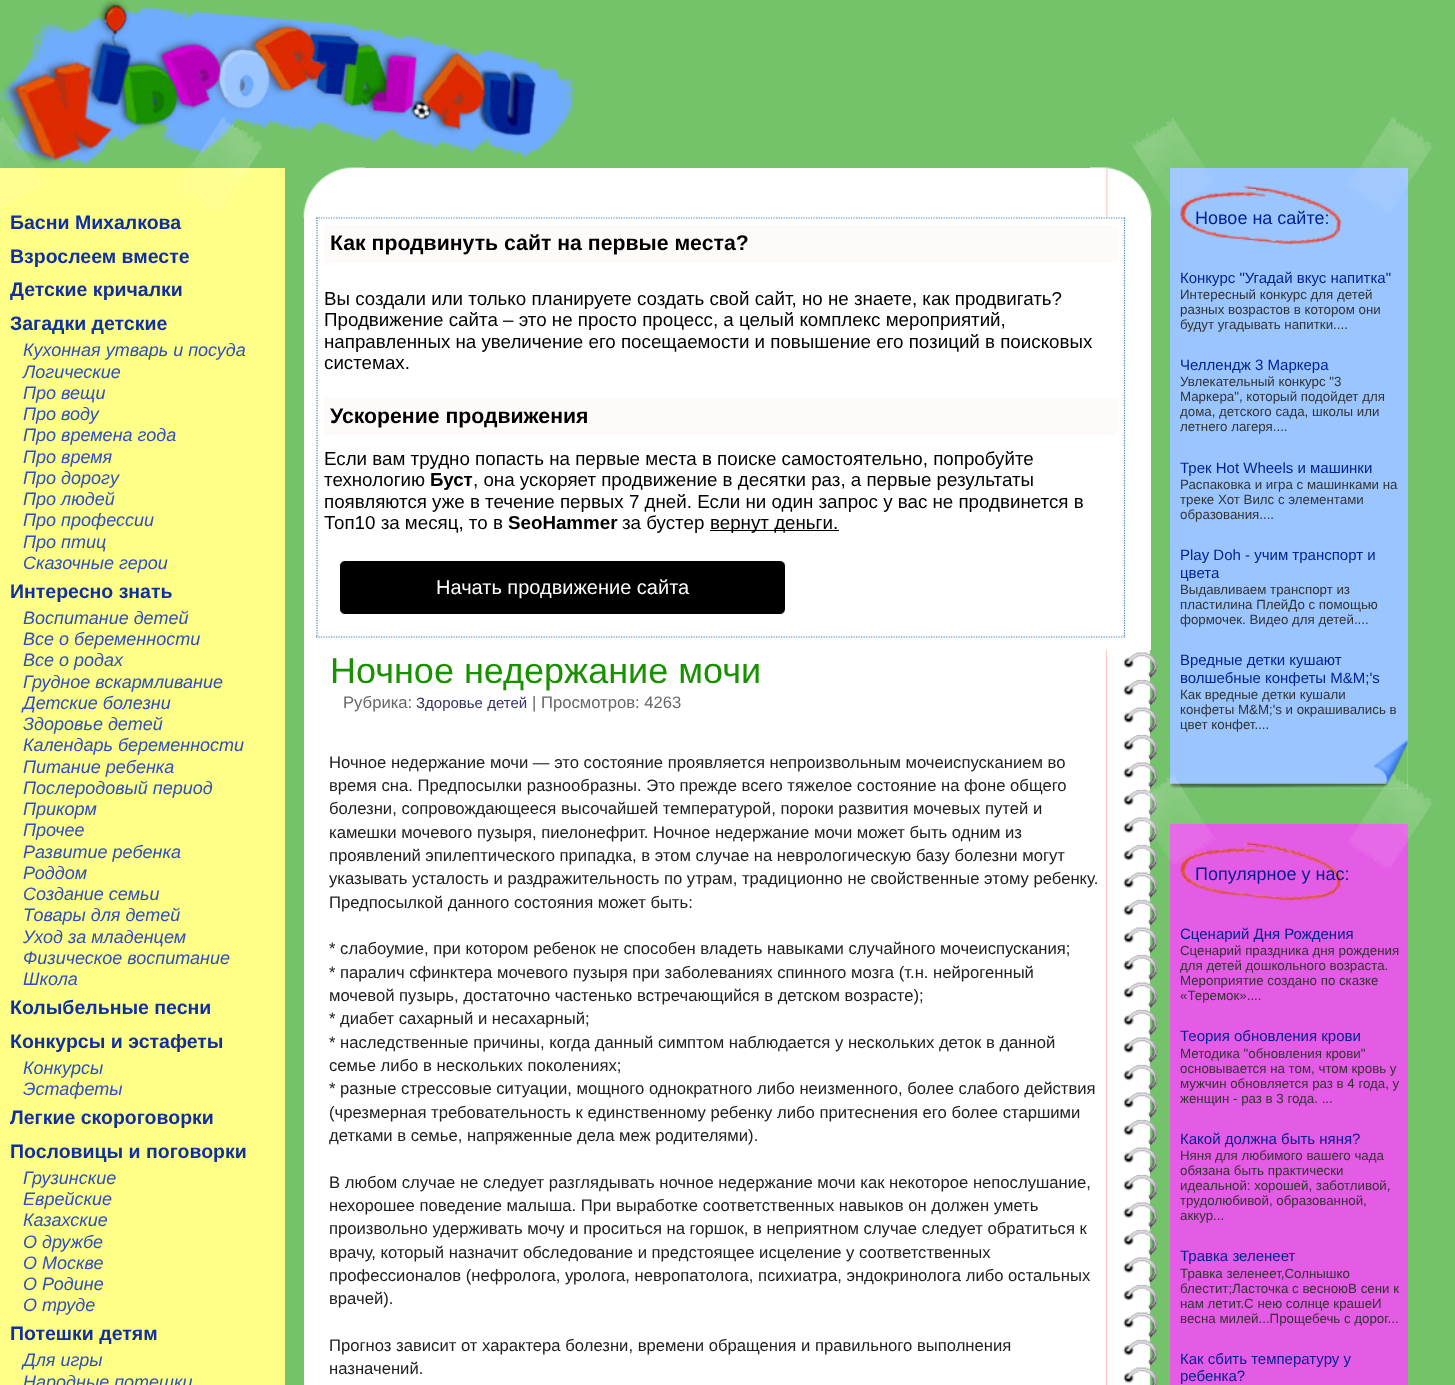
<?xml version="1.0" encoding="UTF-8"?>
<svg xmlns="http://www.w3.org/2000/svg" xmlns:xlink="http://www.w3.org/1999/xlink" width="1455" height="1385">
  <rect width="100%" height="100%" fill="#74c36a" />
  <rect x="304" y="168" width="847" height="1217" fill="#ffffff" />
  <image x="303" y="167" width="62" height="51" xlink:href="image3.png" />
  <image x="0" y="0" width="574" height="168" xlink:href="image1.png" />
  <rect y="168" width="285" height="1217" fill="#feff87" />
  <image x="0" y="117" width="263" height="95" xlink:href="image2.png" />
  <image x="1090" y="167" width="62" height="51" xlink:href="image4.png" />
  <path d="M 316 218 h 809" fill="none" stroke="#4682b4" stroke-width="1.2" stroke-dasharray="1.25 1.25" />
  <path d="M 1124.5 217.5 v 420" fill="none" stroke="#4682b4" stroke-width="1.2" stroke-dasharray="1.25 1.25" />
  <path d="M 316 637 h 809" fill="none" stroke="#4682b4" stroke-width="1.2" stroke-dasharray="1.25 1.25" />
  <path d="M 317 217.5 v 420" fill="none" stroke="#4682b4" stroke-width="1.2" stroke-dasharray="1.25 1.25" />
  <rect x="324" y="225" width="794" height="38" fill="#fffafa" />
  <rect x="324" y="398" width="794" height="37" fill="#fffafa" />
  <rect x="710" y="530" width="129" height="1" fill="#000000" />
  <rect x="339.5" y="560.5" width="446" height="54" rx="5.5" fill="#000000" stroke="#ffffff" />
  <image x="1123" y="650" width="35" height="735" xlink:href="image5.png" />
  <rect x="1106" y="650" width="1" height="735" fill="#ffc6c6" />
  <rect x="1170" y="168" width="238" height="621" fill="#9ac5ff" />
  <image x="1170" y="734" width="238" height="55" xlink:href="image6.png" />
  <image x="1180" y="186" width="162" height="59" xlink:href="image8.png" />
  <rect x="1170" y="824" width="238" height="561" fill="#e45ce5" />
  <image x="1180" y="842" width="162" height="60" xlink:href="image10.png" />
  <text x="10" y="229" style="font-family: Liberation Sans; font-size: 19.5px; font-weight: bold; fill: #102fa0">Басни Михалкова</text>
  <text x="10" y="263" style="font-family: Liberation Sans; font-size: 19.5px; font-weight: bold; fill: #102fa0">Взрослеем вместе</text>
  <text x="10" y="296" style="font-family: Liberation Sans; font-size: 19.5px; font-weight: bold; fill: #102fa0">Детские кричалки</text>
  <text x="10" y="330" style="font-family: Liberation Sans; font-size: 19.5px; font-weight: bold; fill: #102fa0">Загадки детские</text>
  <text x="23" y="356" style="font-family: Liberation Sans; font-size: 18px; font-style: italic; fill: #304fc0">Кухонная утварь и посуда</text>
  <text x="23" y="378" style="font-family: Liberation Sans; font-size: 18px; font-style: italic; fill: #304fc0">Логические</text>
  <text x="23" y="399" style="font-family: Liberation Sans; font-size: 18px; font-style: italic; fill: #304fc0">Про вещи</text>
  <text x="23" y="420" style="font-family: Liberation Sans; font-size: 18px; font-style: italic; fill: #304fc0">Про воду</text>
  <text x="23" y="441" style="font-family: Liberation Sans; font-size: 18px; font-style: italic; fill: #304fc0">Про времена года</text>
  <text x="23" y="463" style="font-family: Liberation Sans; font-size: 18px; font-style: italic; fill: #304fc0">Про время</text>
  <text x="23" y="484" style="font-family: Liberation Sans; font-size: 18px; font-style: italic; fill: #304fc0">Про дорогу</text>
  <text x="23" y="505" style="font-family: Liberation Sans; font-size: 18px; font-style: italic; fill: #304fc0">Про людей</text>
  <text x="23" y="526" style="font-family: Liberation Sans; font-size: 18px; font-style: italic; fill: #304fc0">Про профессии</text>
  <text x="23" y="548" style="font-family: Liberation Sans; font-size: 18px; font-style: italic; fill: #304fc0">Про птиц</text>
  <text x="23" y="569" style="font-family: Liberation Sans; font-size: 18px; font-style: italic; fill: #304fc0">Сказочные герои</text>
  <text x="10" y="598" style="font-family: Liberation Sans; font-size: 19.5px; font-weight: bold; fill: #102fa0">Интересно знать</text>
  <text x="23" y="624" style="font-family: Liberation Sans; font-size: 18px; font-style: italic; fill: #304fc0">Воспитание детей</text>
  <text x="23" y="645" style="font-family: Liberation Sans; font-size: 18px; font-style: italic; fill: #304fc0">Все о беременности</text>
  <text x="23" y="666" style="font-family: Liberation Sans; font-size: 18px; font-style: italic; fill: #304fc0">Все о родах</text>
  <text x="23" y="688" style="font-family: Liberation Sans; font-size: 18px; font-style: italic; fill: #304fc0">Грудное вскармливание</text>
  <text x="23" y="709" style="font-family: Liberation Sans; font-size: 18px; font-style: italic; fill: #304fc0">Детские болезни</text>
  <text x="23" y="730" style="font-family: Liberation Sans; font-size: 18px; font-style: italic; fill: #304fc0">Здоровье детей</text>
  <text x="23" y="751" style="font-family: Liberation Sans; font-size: 18px; font-style: italic; fill: #304fc0">Календарь беременности</text>
  <text x="23" y="773" style="font-family: Liberation Sans; font-size: 18px; font-style: italic; fill: #304fc0">Питание ребенка</text>
  <text x="23" y="794" style="font-family: Liberation Sans; font-size: 18px; font-style: italic; fill: #304fc0">Послеродовый период</text>
  <text x="23" y="815" style="font-family: Liberation Sans; font-size: 18px; font-style: italic; fill: #304fc0">Прикорм</text>
  <text x="23" y="836" style="font-family: Liberation Sans; font-size: 18px; font-style: italic; fill: #304fc0">Прочее</text>
  <text x="23" y="858" style="font-family: Liberation Sans; font-size: 18px; font-style: italic; fill: #304fc0">Развитие ребенка</text>
  <text x="23" y="879" style="font-family: Liberation Sans; font-size: 18px; font-style: italic; fill: #304fc0">Роддом</text>
  <text x="23" y="900" style="font-family: Liberation Sans; font-size: 18px; font-style: italic; fill: #304fc0">Создание семьи</text>
  <text x="23" y="921" style="font-family: Liberation Sans; font-size: 18px; font-style: italic; fill: #304fc0">Товары для детей</text>
  <text x="23" y="943" style="font-family: Liberation Sans; font-size: 18px; font-style: italic; fill: #304fc0">Уход за младенцем</text>
  <text x="23" y="964" style="font-family: Liberation Sans; font-size: 18px; font-style: italic; fill: #304fc0">Физическое воспитание</text>
  <text x="23" y="985" style="font-family: Liberation Sans; font-size: 18px; font-style: italic; fill: #304fc0">Школа</text>
  <text x="10" y="1014" style="font-family: Liberation Sans; font-size: 19.5px; font-weight: bold; fill: #102fa0">Колыбельные песни</text>
  <text x="10" y="1048" style="font-family: Liberation Sans; font-size: 19.5px; font-weight: bold; fill: #102fa0">Конкурсы и эстафеты</text>
  <text x="23" y="1074" style="font-family: Liberation Sans; font-size: 18px; font-style: italic; fill: #304fc0">Конкурсы</text>
  <text x="23" y="1095" style="font-family: Liberation Sans; font-size: 18px; font-style: italic; fill: #304fc0">Эстафеты</text>
  <text x="10" y="1124" style="font-family: Liberation Sans; font-size: 19.5px; font-weight: bold; fill: #102fa0">Легкие скороговорки</text>
  <text x="10" y="1158" style="font-family: Liberation Sans; font-size: 19.5px; font-weight: bold; fill: #102fa0">Пословицы и поговорки</text>
  <text x="23" y="1184" style="font-family: Liberation Sans; font-size: 18px; font-style: italic; fill: #304fc0">Грузинские</text>
  <text x="23" y="1205" style="font-family: Liberation Sans; font-size: 18px; font-style: italic; fill: #304fc0">Еврейские</text>
  <text x="23" y="1226" style="font-family: Liberation Sans; font-size: 18px; font-style: italic; fill: #304fc0">Казахские</text>
  <text x="23" y="1248" style="font-family: Liberation Sans; font-size: 18px; font-style: italic; fill: #304fc0">О дружбе</text>
  <text x="23" y="1269" style="font-family: Liberation Sans; font-size: 18px; font-style: italic; fill: #304fc0">О Москве</text>
  <text x="23" y="1290" style="font-family: Liberation Sans; font-size: 18px; font-style: italic; fill: #304fc0">О Родине</text>
  <text x="23" y="1311" style="font-family: Liberation Sans; font-size: 18px; font-style: italic; fill: #304fc0">О труде</text>
  <text x="10" y="1340" style="font-family: Liberation Sans; font-size: 19.5px; font-weight: bold; fill: #102fa0">Потешки детям</text>
  <text x="23" y="1366" style="font-family: Liberation Sans; font-size: 18px; font-style: italic; fill: #304fc0">Для игры</text>
  <text x="23" y="1388" style="font-family: Liberation Sans; font-size: 18px; font-style: italic; fill: #304fc0">Народные потешки</text>
  <text x="330" y="250" style="font-family: Liberation Sans; font-size: 21.25px; font-weight: bold; fill: #000000">Как продвинуть сайт на первые места?</text>
  <text x="324" y="305" style="font-family: Liberation Sans; font-size: 18.75px; fill: #000000">Вы создали или только планируете создать свой сайт, но не знаете, как продвигать?</text>
  <text x="324" y="326" style="font-family: Liberation Sans; font-size: 18.75px; fill: #000000">Продвижение сайта – это не просто процесс, а целый комплекс мероприятий,</text>
  <text x="324" y="348" style="font-family: Liberation Sans; font-size: 18.75px; fill: #000000">направленных на увеличение его посещаемости и повышение его позиций в поисковых</text>
  <text x="324" y="369" style="font-family: Liberation Sans; font-size: 18.75px; fill: #000000">системах.</text>
  <text x="330" y="423" style="font-family: Liberation Sans; font-size: 21.25px; font-weight: bold; fill: #000000">Ускорение продвижения</text>
  <text x="324" y="465" style="font-family: Liberation Sans; font-size: 18.75px; fill: #000000">Если вам трудно попасть на первые места в поиске самостоятельно, попробуйте</text>
  <text x="324" y="486" style="font-family: Liberation Sans; font-size: 18.75px; fill: #000000">технологию</text>
  <text x="430" y="486" style="font-family: Liberation Sans; font-size: 18.75px; font-weight: bold; fill: #000000">Буст</text>
  <text x="473" y="486" style="font-family: Liberation Sans; font-size: 18.75px; fill: #000000">, она ускоряет продвижение в десятки раз, а первые результаты</text>
  <text x="324" y="508" style="font-family: Liberation Sans; font-size: 18.75px; fill: #000000">появляются уже в течение первых 7 дней. Если ни один запрос у вас не продвинется в</text>
  <text x="324" y="529" style="font-family: Liberation Sans; font-size: 18.75px; fill: #000000">Топ10 за месяц, то в</text>
  <text x="508" y="529" style="font-family: Liberation Sans; font-size: 18.75px; font-weight: bold; fill: #000000">SeoHammer</text>
  <text x="622" y="529" style="font-family: Liberation Sans; font-size: 18.75px; fill: #000000">за бустер</text>
  <text x="710" y="529" style="font-family: Liberation Sans; font-size: 18.75px; fill: #000000">вернут деньги.</text>
  <text x="436" y="594" style="font-family: Liberation Sans; font-size: 20px; fill: #ffffff">Начать продвижение сайта</text>
  <text x="330" y="683" style="font-family: Liberation Sans; font-size: 36px; fill: #189000">Ночное недержание мочи</text>
  <text x="343" y="708" style="font-family: Liberation Sans; font-size: 16.65px; fill: #666666">Рубрика:</text>
  <text x="416" y="708" style="font-family: Liberation Sans; font-size: 15px; fill: #333366">Здоровье детей</text>
  <text x="532" y="708" style="font-family: Liberation Sans; font-size: 16.65px; fill: #666666">| Просмотров: 4263</text>
  <text x="329" y="768" style="font-family: Liberation Sans; font-size: 16.65px; fill: #202020">Ночное недержание мочи — это состояние проявляется непроизвольным мочеиспусканием во</text>
  <text x="329" y="791" style="font-family: Liberation Sans; font-size: 16.65px; fill: #202020">время сна. Предпосылки разнообразны. Это прежде всего тяжелое состояние на фоне общего</text>
  <text x="329" y="814" style="font-family: Liberation Sans; font-size: 16.65px; fill: #202020">болезни, сопровождающееся высочайшей температурой, пороки развития мочевых путей и</text>
  <text x="329" y="838" style="font-family: Liberation Sans; font-size: 16.65px; fill: #202020">камешки мочевого пузыря, пиелонефрит. Ночное недержание мочи может быть одним из</text>
  <text x="329" y="861" style="font-family: Liberation Sans; font-size: 16.65px; fill: #202020">проявлений эпилептического припадка, в этом случае на неврологическую базу болезни могут</text>
  <text x="329" y="884" style="font-family: Liberation Sans; font-size: 16.65px; fill: #202020">указывать усталость и раздражительность по утрам, традиционно не свойственные этому ребенку.</text>
  <text x="329" y="908" style="font-family: Liberation Sans; font-size: 16.65px; fill: #202020">Предпосылкой данного состояния может быть:</text>
  <text x="329" y="954" style="font-family: Liberation Sans; font-size: 16.65px; fill: #202020">* слабоумие, при котором ребенок не способен владеть навыками случайного мочеиспускания;</text>
  <text x="329" y="978" style="font-family: Liberation Sans; font-size: 16.65px; fill: #202020">* паралич сфинктера мочевого пузыря при заболеваниях спинного мозга (т.н. нейрогенный</text>
  <text x="329" y="1001" style="font-family: Liberation Sans; font-size: 16.65px; fill: #202020">мочевой пузырь, достаточно частенько встречающийся в детском возрасте);</text>
  <text x="329" y="1024" style="font-family: Liberation Sans; font-size: 16.65px; fill: #202020">* диабет сахарный и несахарный;</text>
  <text x="329" y="1048" style="font-family: Liberation Sans; font-size: 16.65px; fill: #202020">* наследственные причины, когда данный симптом наблюдается у нескольких деток в данной</text>
  <text x="329" y="1071" style="font-family: Liberation Sans; font-size: 16.65px; fill: #202020">семье либо в нескольких поколениях;</text>
  <text x="329" y="1094" style="font-family: Liberation Sans; font-size: 16.65px; fill: #202020">* разные стрессовые ситуации, мощного однократного либо неизменного, более слабого действия</text>
  <text x="329" y="1118" style="font-family: Liberation Sans; font-size: 16.65px; fill: #202020">(чрезмерная требовательность к единственному ребенку либо притеснения его более старшими</text>
  <text x="329" y="1141" style="font-family: Liberation Sans; font-size: 16.65px; fill: #202020">детками в семье, напряженные дела меж родителями).</text>
  <text x="329" y="1188" style="font-family: Liberation Sans; font-size: 16.65px; fill: #202020">В любом случае не следует разглядывать ночное недержание мочи как некоторое непослушание,</text>
  <text x="329" y="1211" style="font-family: Liberation Sans; font-size: 16.65px; fill: #202020">нехорошее поведение малыша. При выработке соответственных навыков он должен уметь</text>
  <text x="329" y="1234" style="font-family: Liberation Sans; font-size: 16.65px; fill: #202020">произвольно удерживать мочу и проситься на горшок, в неприятном случае следует обратиться к</text>
  <text x="329" y="1258" style="font-family: Liberation Sans; font-size: 16.65px; fill: #202020">врачу, который назначит обследование и предстоящее исцеление у соответственных</text>
  <text x="329" y="1281" style="font-family: Liberation Sans; font-size: 16.65px; fill: #202020">профессионалов (нефролога, уролога, невропатолога, психиатра, эндокринолога либо остальных</text>
  <text x="329" y="1304" style="font-family: Liberation Sans; font-size: 16.65px; fill: #202020">врачей).</text>
  <text x="329" y="1351" style="font-family: Liberation Sans; font-size: 16.65px; fill: #202020">Прогноз зависит от характера болезни, времени обращения и правильного выполнения</text>
  <text x="329" y="1374" style="font-family: Liberation Sans; font-size: 16.65px; fill: #202020">назначений.</text>
  <text x="1195" y="224" style="font-family: Liberation Sans; font-size: 18px; fill: #001f90">Новое на сайте:</text>
  <image x="1131" y="117" width="302" height="95" xlink:href="image7.png" />
  <text x="1180" y="283" style="font-family: Liberation Sans; font-size: 15px; fill: #001f90">Конкурс "Угадай вкус напитка"</text>
  <text x="1180" y="299" style="font-family: Liberation Sans; font-size: 13.3px; fill: #333333">Интересный конкурс для детей</text>
  <text x="1180" y="314" style="font-family: Liberation Sans; font-size: 13.3px; fill: #333333">разных возрастов в котором они</text>
  <text x="1180" y="329" style="font-family: Liberation Sans; font-size: 13.3px; fill: #333333">будут угадывать напитки....</text>
  <text x="1180" y="370" style="font-family: Liberation Sans; font-size: 15px; fill: #001f90">Челлендж 3 Маркера</text>
  <text x="1180" y="386" style="font-family: Liberation Sans; font-size: 13.3px; fill: #333333">Увлекательный конкурс "3</text>
  <text x="1180" y="401" style="font-family: Liberation Sans; font-size: 13.3px; fill: #333333">Маркера", который подойдет для</text>
  <text x="1180" y="416" style="font-family: Liberation Sans; font-size: 13.3px; fill: #333333">дома, детского сада, школы или</text>
  <text x="1180" y="431" style="font-family: Liberation Sans; font-size: 13.3px; fill: #333333">летнего лагеря....</text>
  <text x="1180" y="473" style="font-family: Liberation Sans; font-size: 15px; fill: #001f90">Трек Hot Wheels и машинки</text>
  <text x="1180" y="489" style="font-family: Liberation Sans; font-size: 13.3px; fill: #333333">Распаковка и игра с машинками на</text>
  <text x="1180" y="504" style="font-family: Liberation Sans; font-size: 13.3px; fill: #333333">треке Хот Вилс с элементами</text>
  <text x="1180" y="519" style="font-family: Liberation Sans; font-size: 13.3px; fill: #333333">образования....</text>
  <text x="1180" y="560" style="font-family: Liberation Sans; font-size: 15px; fill: #001f90">Play Doh - учим транспорт и</text>
  <text x="1180" y="578" style="font-family: Liberation Sans; font-size: 15px; fill: #001f90">цвета</text>
  <text x="1180" y="594" style="font-family: Liberation Sans; font-size: 13.3px; fill: #333333">Выдавливаем транспорт из</text>
  <text x="1180" y="609" style="font-family: Liberation Sans; font-size: 13.3px; fill: #333333">пластилина ПлейДо с помощью</text>
  <text x="1180" y="624" style="font-family: Liberation Sans; font-size: 13.3px; fill: #333333">формочек. Видео для детей....</text>
  <text x="1180" y="665" style="font-family: Liberation Sans; font-size: 15px; fill: #001f90">Вредные детки кушают</text>
  <text x="1180" y="683" style="font-family: Liberation Sans; font-size: 15px; fill: #001f90">волшебные конфеты M&amp;M;'s</text>
  <text x="1180" y="699" style="font-family: Liberation Sans; font-size: 13.3px; fill: #333333">Как вредные детки кушали</text>
  <text x="1180" y="714" style="font-family: Liberation Sans; font-size: 13.3px; fill: #333333">конфеты M&amp;M;'s и окрашивались в</text>
  <text x="1180" y="729" style="font-family: Liberation Sans; font-size: 13.3px; fill: #333333">цвет конфет....</text>
  <text x="1195" y="880" style="font-family: Liberation Sans; font-size: 18px; fill: #001f90">Популярное у нас:</text>
  <image x="1131" y="773" width="302" height="96" xlink:href="image9.png" />
  <text x="1180" y="939" style="font-family: Liberation Sans; font-size: 15px; fill: #001f90">Сценарий Дня Рождения</text>
  <text x="1180" y="955" style="font-family: Liberation Sans; font-size: 13.3px; fill: #333333">Сценарий праздника дня рождения</text>
  <text x="1180" y="970" style="font-family: Liberation Sans; font-size: 13.3px; fill: #333333">для детей дошкольного возраста.</text>
  <text x="1180" y="985" style="font-family: Liberation Sans; font-size: 13.3px; fill: #333333">Мероприятие создано по сказке</text>
  <text x="1180" y="1000" style="font-family: Liberation Sans; font-size: 13.3px; fill: #333333">«Теремок»....</text>
  <text x="1180" y="1041" style="font-family: Liberation Sans; font-size: 15px; fill: #001f90">Теория обновления крови</text>
  <text x="1180" y="1058" style="font-family: Liberation Sans; font-size: 13.3px; fill: #333333">Методика "обновления крови"</text>
  <text x="1180" y="1073" style="font-family: Liberation Sans; font-size: 13.3px; fill: #333333">основывается на том, чтом кровь у</text>
  <text x="1180" y="1088" style="font-family: Liberation Sans; font-size: 13.3px; fill: #333333">мужчин обновляется раз в 4 года, у</text>
  <text x="1180" y="1103" style="font-family: Liberation Sans; font-size: 13.3px; fill: #333333">женщин - раз в 3 года. ...</text>
  <text x="1180" y="1144" style="font-family: Liberation Sans; font-size: 15px; fill: #001f90">Какой должна быть няня?</text>
  <text x="1180" y="1160" style="font-family: Liberation Sans; font-size: 13.3px; fill: #333333">Няня для любимого вашего чада</text>
  <text x="1180" y="1175" style="font-family: Liberation Sans; font-size: 13.3px; fill: #333333">обязана быть практически</text>
  <text x="1180" y="1190" style="font-family: Liberation Sans; font-size: 13.3px; fill: #333333">идеальной: хорошей, заботливой,</text>
  <text x="1180" y="1205" style="font-family: Liberation Sans; font-size: 13.3px; fill: #333333">трудолюбивой, образованной,</text>
  <text x="1180" y="1220" style="font-family: Liberation Sans; font-size: 13.3px; fill: #333333">аккур...</text>
  <text x="1180" y="1261" style="font-family: Liberation Sans; font-size: 15px; fill: #001f90">Травка зеленеет</text>
  <text x="1180" y="1278" style="font-family: Liberation Sans; font-size: 13.3px; fill: #333333">Травка зеленеет,Солнышко</text>
  <text x="1180" y="1293" style="font-family: Liberation Sans; font-size: 13.3px; fill: #333333">блестит;Ласточка с весноюВ сени к</text>
  <text x="1180" y="1308" style="font-family: Liberation Sans; font-size: 13.3px; fill: #333333">нам летит.С нею солнце крашеИ</text>
  <text x="1180" y="1323" style="font-family: Liberation Sans; font-size: 13.3px; fill: #333333">весна милей...Прощебечь с дорог...</text>
  <text x="1180" y="1364" style="font-family: Liberation Sans; font-size: 15px; fill: #001f90">Как сбить температуру у</text>
  <text x="1180" y="1381" style="font-family: Liberation Sans; font-size: 15px; fill: #001f90">ребенка?</text>
</svg>
